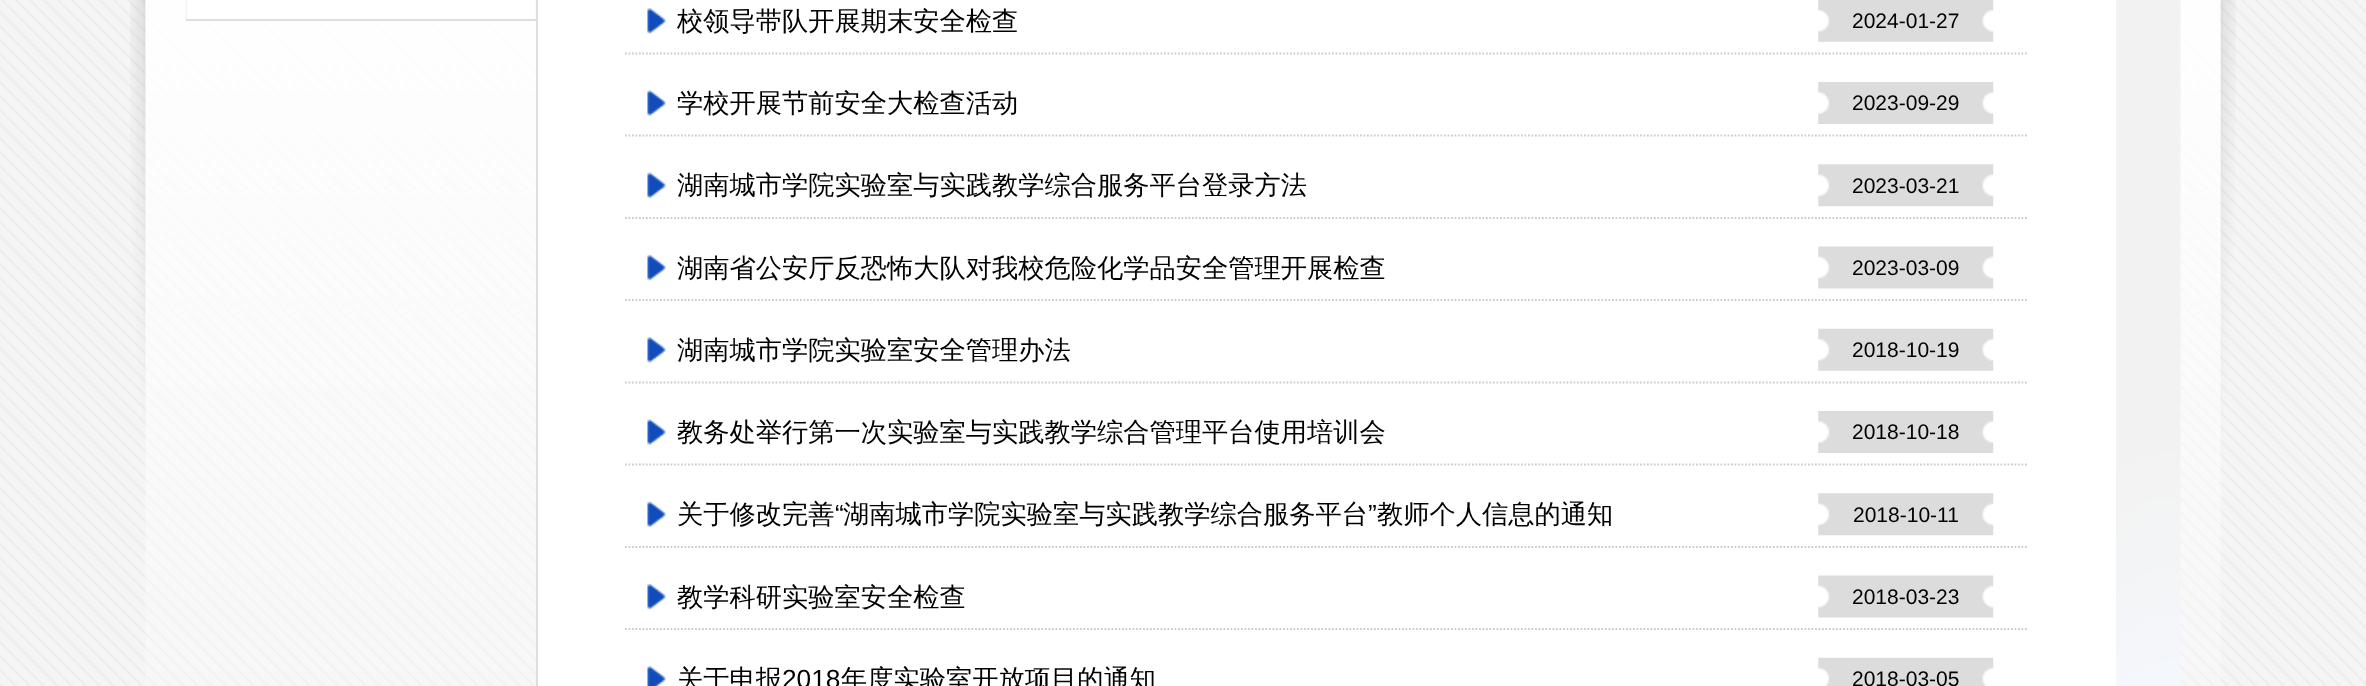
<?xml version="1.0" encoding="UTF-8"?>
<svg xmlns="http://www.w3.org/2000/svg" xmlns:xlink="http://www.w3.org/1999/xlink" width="2366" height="686">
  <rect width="100%" height="100%" fill="#ffffff" />
  <image x="0" y="0" width="2366" height="686" xlink:href="image1.png" />
  <image x="130" y="0" width="2106" height="686" xlink:href="image2.png" />
  <image x="2116" y="0" width="65" height="686" xlink:href="image3.png" />
  <rect x="185" width="1" height="21" fill="#f4f8fe" />
  <rect x="535" width="1" height="19" fill="#f5f5f5" />
  <image x="185" y="0" width="351" height="21" xlink:href="image4.png" />
  <rect x="186" y="19" width="350" height="2" fill="#dedede" />
  <rect x="538" width="1578" height="686" fill="#ffffff" />
  <rect x="536" width="2" height="686" fill="#dfdfdf" />
  <path d="M 625 53.5 h 1403" fill="none" stroke="#cccccc" stroke-width="1.8" stroke-dasharray="1.75 1.75" />
  <image x="647" y="8" width="19" height="26" xlink:href="image5.png" />
  <image x="1818" y="0" width="176" height="42" xlink:href="image6.png" />
  <path d="M 625 135.5 h 1403" fill="none" stroke="#cccccc" stroke-width="1.8" stroke-dasharray="1.75 1.75" />
  <image x="647" y="90" width="19" height="26" xlink:href="image7.png" />
  <image x="1818" y="82" width="176" height="42" xlink:href="image8.png" />
  <path d="M 625 218 h 1403" fill="none" stroke="#cccccc" stroke-width="1.8" stroke-dasharray="1.75 1.75" />
  <image x="647" y="172" width="19" height="26" xlink:href="image9.png" />
  <image x="1818" y="164" width="176" height="43" xlink:href="image10.png" />
  <path d="M 625 300 h 1403" fill="none" stroke="#cccccc" stroke-width="1.8" stroke-dasharray="1.75 1.75" />
  <image x="647" y="254" width="19" height="27" xlink:href="image11.png" />
  <image x="1818" y="246" width="176" height="43" xlink:href="image12.png" />
  <path d="M 625 382.5 h 1403" fill="none" stroke="#cccccc" stroke-width="1.8" stroke-dasharray="1.75 1.75" />
  <image x="647" y="337" width="19" height="26" xlink:href="image5.png" />
  <image x="1818" y="328" width="176" height="43" xlink:href="image13.png" />
  <path d="M 625 464.5 h 1403" fill="none" stroke="#cccccc" stroke-width="1.8" stroke-dasharray="1.75 1.75" />
  <image x="647" y="419" width="19" height="26" xlink:href="image7.png" />
  <image x="1818" y="411" width="176" height="42" xlink:href="image8.png" />
  <path d="M 625 547 h 1403" fill="none" stroke="#cccccc" stroke-width="1.8" stroke-dasharray="1.75 1.75" />
  <image x="647" y="501" width="19" height="26" xlink:href="image9.png" />
  <image x="1818" y="493" width="176" height="43" xlink:href="image10.png" />
  <path d="M 625 629 h 1403" fill="none" stroke="#cccccc" stroke-width="1.8" stroke-dasharray="1.75 1.75" />
  <image x="647" y="583" width="19" height="27" xlink:href="image11.png" />
  <image x="1818" y="575" width="176" height="43" xlink:href="image12.png" />
  <image x="647" y="666" width="19" height="20" xlink:href="image14.png" />
  <image x="1818" y="657" width="176" height="29" xlink:href="image15.png" />
  <text x="677" y="30" style="font-family: WenQuanYi Zen Hei; font-size: 26.25px; font-weight: 500; fill: #000000">校领导带队开展期末安全检查</text>
  <text x="1852" y="28" style="font-family: Liberation Sans; font-size: 21px; fill: #000000">2024-01-27</text>
  <text x="677" y="112" style="font-family: WenQuanYi Zen Hei; font-size: 26.25px; font-weight: 500; fill: #000000">学校开展节前安全大检查活动</text>
  <text x="1852" y="110" style="font-family: Liberation Sans; font-size: 21px; fill: #000000">2023-09-29</text>
  <text x="677" y="194" style="font-family: WenQuanYi Zen Hei; font-size: 26.25px; font-weight: 500; fill: #000000">湖南城市学院实验室与实践教学综合服务平台登录方法</text>
  <text x="1852" y="193" style="font-family: Liberation Sans; font-size: 21px; fill: #000000">2023-03-21</text>
  <text x="677" y="277" style="font-family: WenQuanYi Zen Hei; font-size: 26.25px; font-weight: 500; fill: #000000">湖南省公安厅反恐怖大队对我校危险化学品安全管理开展检查</text>
  <text x="1852" y="275" style="font-family: Liberation Sans; font-size: 21px; fill: #000000">2023-03-09</text>
  <text x="677" y="359" style="font-family: WenQuanYi Zen Hei; font-size: 26.25px; font-weight: 500; fill: #000000">湖南城市学院实验室安全管理办法</text>
  <text x="1852" y="357" style="font-family: Liberation Sans; font-size: 21px; fill: #000000">2018-10-19</text>
  <text x="677" y="441" style="font-family: WenQuanYi Zen Hei; font-size: 26.25px; font-weight: 500; fill: #000000">教务处举行第一次实验室与实践教学综合管理平台使用培训会</text>
  <text x="1852" y="439" style="font-family: Liberation Sans; font-size: 21px; fill: #000000">2018-10-18</text>
  <text x="677" y="523" style="font-family: WenQuanYi Zen Hei; font-size: 26.25px; font-weight: 500; fill: #000000">关于修改完善</text>
  <text x="835" y="523" style="font-family: Liberation Sans; font-size: 26.25px; fill: #000000">“</text>
  <text x="843" y="523" style="font-family: WenQuanYi Zen Hei; font-size: 26.25px; font-weight: 500; fill: #000000">湖南城市学院实验室与实践教学综合服务平台</text>
  <text x="1368" y="523" style="font-family: Liberation Sans; font-size: 26.25px; fill: #000000">”</text>
  <text x="1377" y="523" style="font-family: WenQuanYi Zen Hei; font-size: 26.25px; font-weight: 500; fill: #000000">教师个人信息的通知</text>
  <text x="1853" y="522" style="font-family: Liberation Sans; font-size: 21px; fill: #000000">2018-10-11</text>
  <text x="677" y="606" style="font-family: WenQuanYi Zen Hei; font-size: 26.25px; font-weight: 500; fill: #000000">教学科研实验室安全检查</text>
  <text x="1852" y="604" style="font-family: Liberation Sans; font-size: 21px; fill: #000000">2018-03-23</text>
  <text x="677" y="688" style="font-family: WenQuanYi Zen Hei; font-size: 26.25px; font-weight: 500; fill: #000000">关于申报</text>
  <text x="782" y="688" style="font-family: Liberation Sans; font-size: 26.25px; fill: #000000">2018</text>
  <text x="841" y="688" style="font-family: WenQuanYi Zen Hei; font-size: 26.25px; font-weight: 500; fill: #000000">年度实验室开放项目的通知</text>
  <text x="1852" y="686" style="font-family: Liberation Sans; font-size: 21px; fill: #000000">2018-03-05</text>
</svg>
